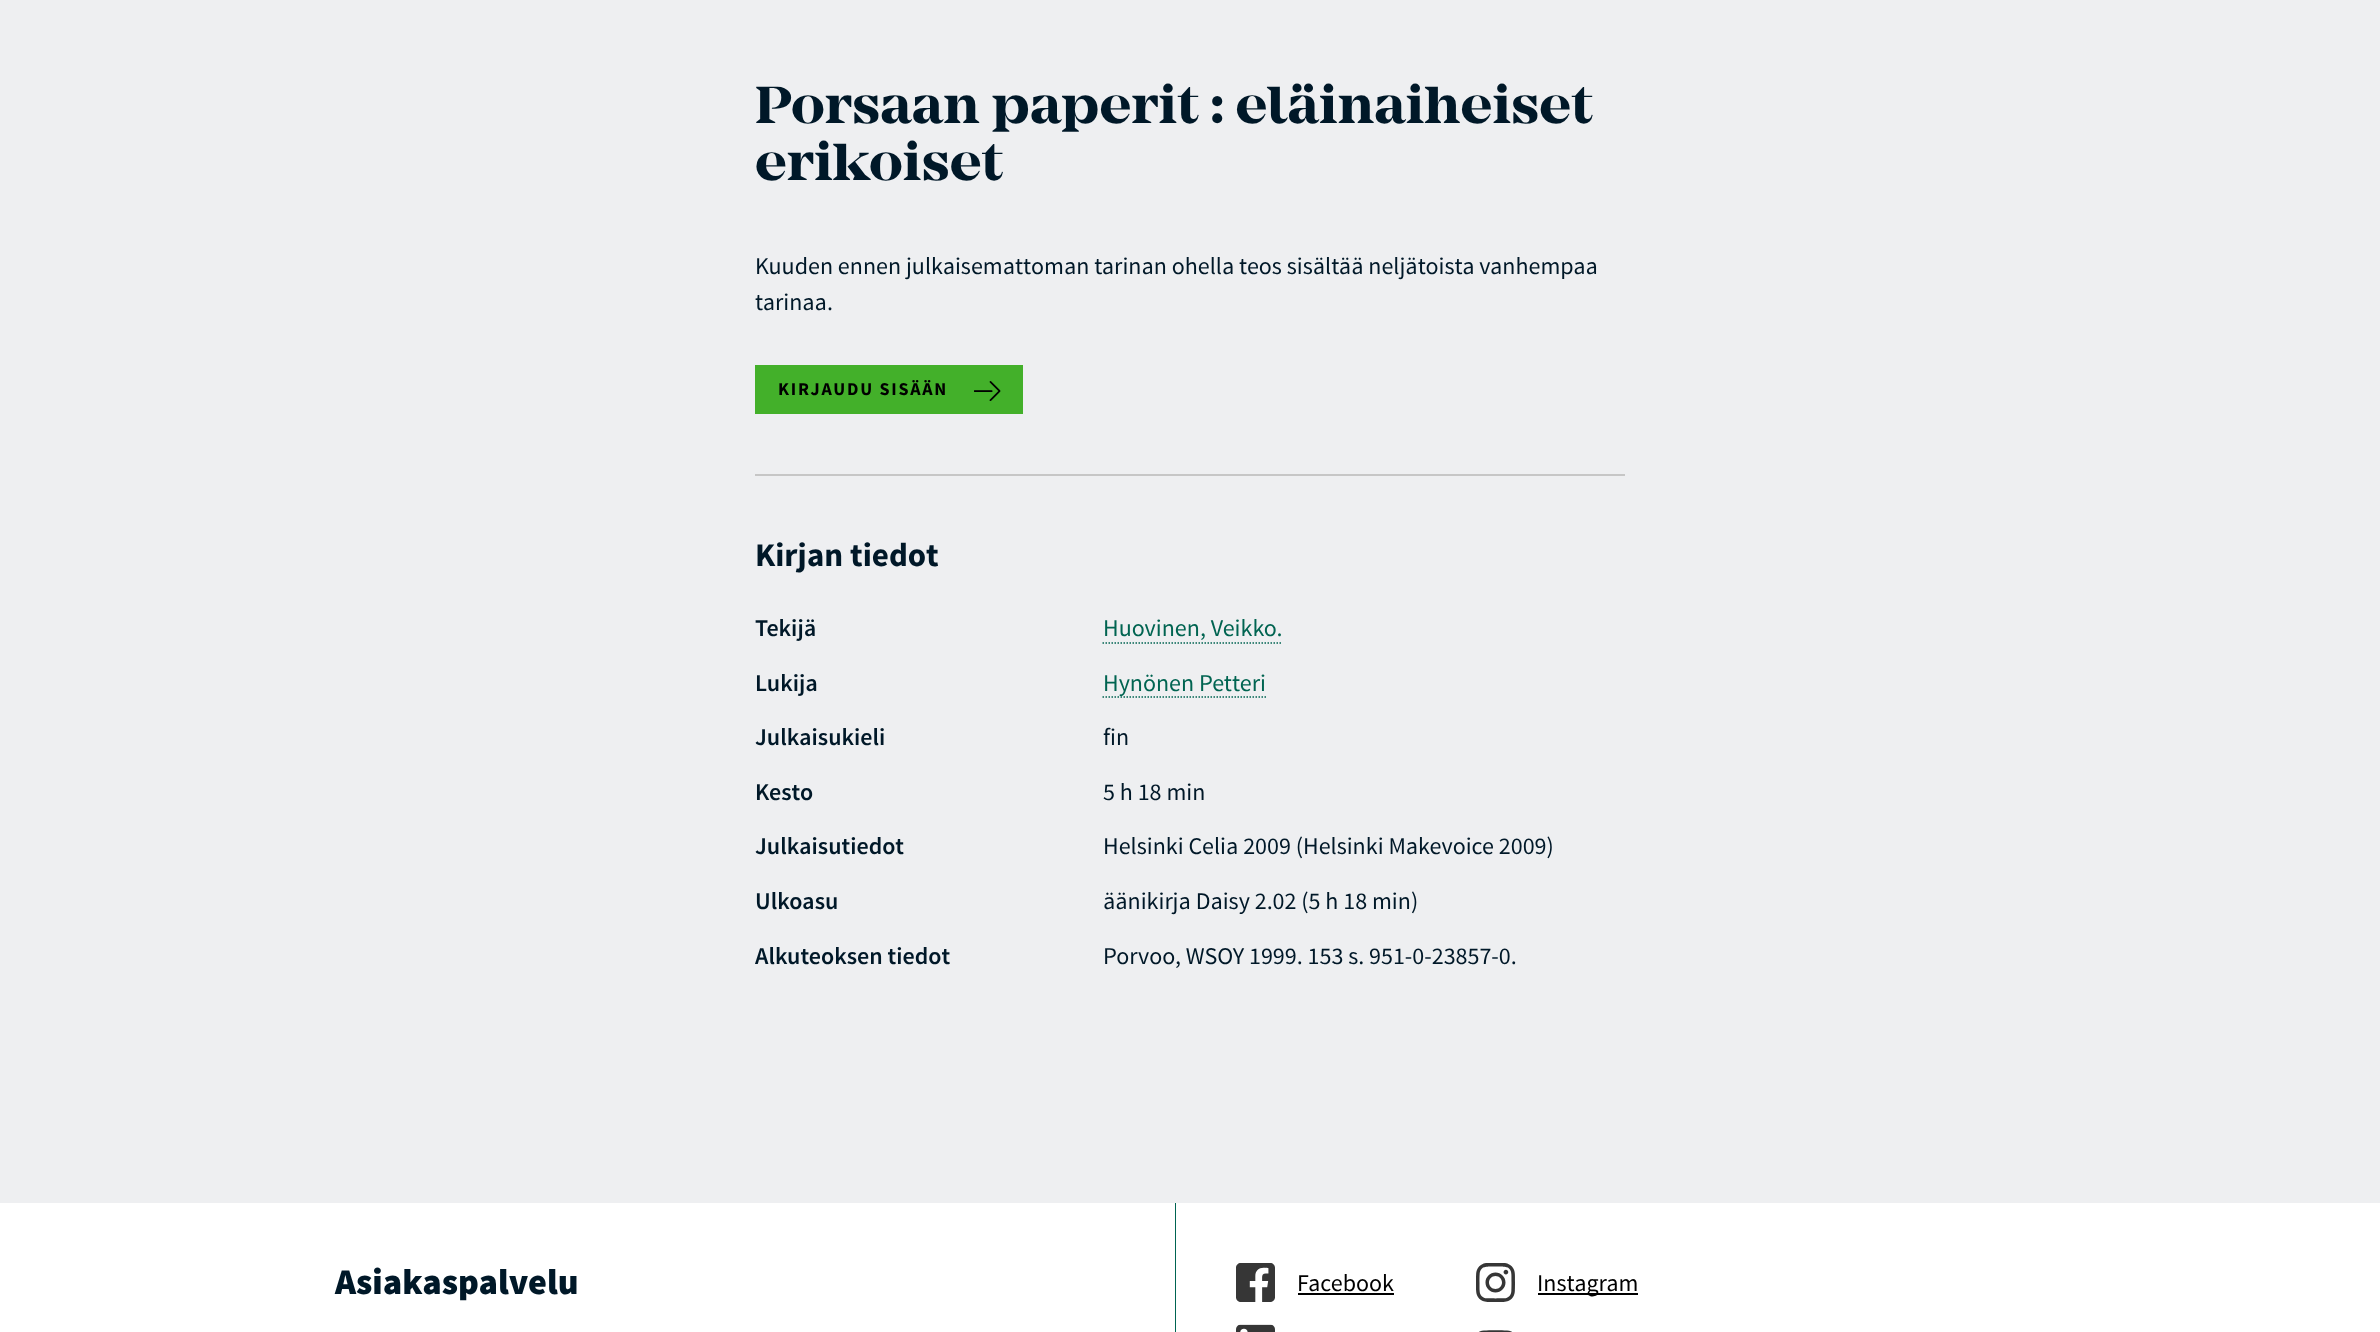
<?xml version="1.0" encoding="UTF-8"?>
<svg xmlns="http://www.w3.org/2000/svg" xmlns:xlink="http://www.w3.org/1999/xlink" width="2380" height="1332">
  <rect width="100%" height="100%" fill="#eeeff1" />
  <rect x="755" y="365" width="268" height="49" fill="#43b02a" />
  <image x="974" y="381" width="27" height="20" xlink:href="image1.png" />
  <rect x="755" y="474" width="870" height="2" fill="#c6c6c6" />
  <path d="M 1102.5 643 h 180" fill="none" stroke="#006451" stroke-width="1.5" stroke-dasharray="1.5 1.5" />
  <path d="M 1102.5 697 h 163.5" fill="none" stroke="#006451" stroke-width="1.5" stroke-dasharray="1.5 1.5" />
  <rect y="1203" width="2380" height="129" fill="#ffffff" />
  <rect x="1175" y="1203" width="1" height="129" fill="#006451" />
  <image x="1236" y="1263" width="39" height="39" xlink:href="image2.png" />
  <rect x="1298" y="1293" width="96" height="2" fill="#000000" />
  <image x="1476" y="1263" width="39" height="39" xlink:href="image3.png" />
  <rect x="1538" y="1293" width="100" height="2" fill="#000000" />
  <image x="1236" y="1324" width="39" height="8" xlink:href="image4.png" />
  <image x="1479" y="1330" width="33" height="2" xlink:href="image5.png" />
  <text x="755" y="123" style="font-family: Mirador; font-size: 54px; fill: #001828">Porsaan paperit : eläinaiheiset</text>
  <text x="755" y="180" style="font-family: Mirador; font-size: 54px; fill: #001828">erikoiset</text>
  <text x="755" y="274" style="font-family: Source Sans Pro; font-size: 24px; fill: #001828">Kuuden ennen julkaisemattoman tarinan ohella teos sisältää neljätoista vanhempaa</text>
  <text x="755" y="310" style="font-family: Source Sans Pro; font-size: 24px; fill: #001828">tarinaa.</text>
  <text x="778" y="395" style="font-family: Source Sans Pro; font-size: 18px; font-weight: bold; letter-spacing: 1.75px; fill: #000000">KIRJAUDU SISÄÄN</text>
  <text x="755" y="566" style="font-family: Source Sans Pro; font-size: 33px; font-weight: bold; fill: #001828">Kirjan tiedot</text>
  <text x="755" y="636" style="font-family: Source Sans Pro; font-size: 24px; font-weight: 600; fill: #001828">Tekijä</text>
  <text x="1103" y="636" style="font-family: Source Sans Pro; font-size: 24px; fill: #006451">Huovinen, Veikko.</text>
  <text x="755" y="691" style="font-family: Source Sans Pro; font-size: 24px; font-weight: 600; fill: #001828">Lukija</text>
  <text x="1103" y="691" style="font-family: Source Sans Pro; font-size: 24px; fill: #006451">Hynönen Petteri</text>
  <text x="755" y="745" style="font-family: Source Sans Pro; font-size: 24px; font-weight: 600; fill: #001828">Julkaisukieli</text>
  <text x="1103" y="745" style="font-family: Source Sans Pro; font-size: 24px; fill: #001828">fin</text>
  <text x="755" y="800" style="font-family: Source Sans Pro; font-size: 24px; font-weight: 600; fill: #001828">Kesto</text>
  <text x="1103" y="800" style="font-family: Source Sans Pro; font-size: 24px; fill: #001828">5 h 18 min</text>
  <text x="755" y="854" style="font-family: Source Sans Pro; font-size: 24px; font-weight: 600; fill: #001828">Julkaisutiedot</text>
  <text x="1103" y="854" style="font-family: Source Sans Pro; font-size: 24px; fill: #001828">Helsinki Celia 2009 (Helsinki Makevoice 2009)</text>
  <text x="755" y="909" style="font-family: Source Sans Pro; font-size: 24px; font-weight: 600; fill: #001828">Ulkoasu</text>
  <text x="1103" y="909" style="font-family: Source Sans Pro; font-size: 24px; fill: #001828">äänikirja Daisy 2.02 (5 h 18 min)</text>
  <text x="755" y="964" style="font-family: Source Sans Pro; font-size: 24px; font-weight: 600; fill: #001828">Alkuteoksen tiedot</text>
  <text x="1103" y="964" style="font-family: Source Sans Pro; font-size: 24px; fill: #001828">Porvoo, WSOY 1999. 153 s. 951-0-23857-0.</text>
  <text x="335" y="1294" style="font-family: Source Sans Pro; font-size: 36px; font-weight: 900; fill: #001828">Asiakaspalvelu</text>
  <text x="1297" y="1291" style="font-family: Source Sans Pro; font-size: 24px; fill: #000000">Facebook</text>
  <text x="1537" y="1291" style="font-family: Source Sans Pro; font-size: 24px; fill: #000000">Instagram</text>
</svg>
